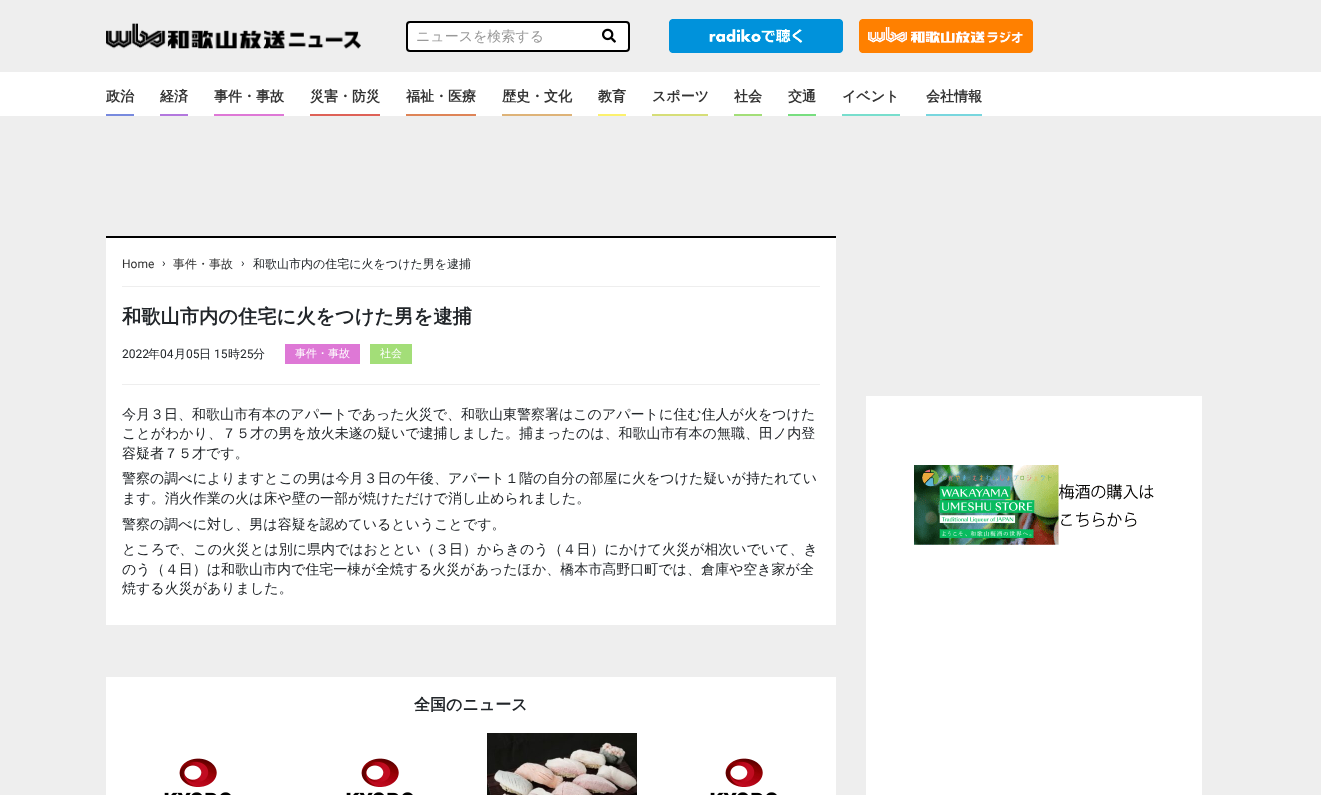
<?xml version="1.0" encoding="UTF-8"?>
<svg xmlns="http://www.w3.org/2000/svg" xmlns:xlink="http://www.w3.org/1999/xlink" width="1321" height="795">
  <rect width="100%" height="100%" fill="#eeeeee" />
  <image x="106" y="23" width="255" height="26" xlink:href="image1.png" />
  <rect x="407" y="22" width="222" height="29" rx="3" fill="#ffffff" stroke="#000000" stroke-width="2" />
  <image x="602" y="28" width="14" height="15" xlink:href="image2.png" />
  <image x="669" y="19" width="174" height="34" xlink:href="image3.png" />
  <image x="859" y="19" width="174" height="34" xlink:href="image4.png" />
  <rect y="72" width="1321" height="44" fill="#ffffff" />
  <rect x="106" y="114" width="28" height="2" fill="#788ade" />
  <rect x="160" y="114" width="28" height="2" fill="#b378de" />
  <rect x="214" y="114" width="70" height="2" fill="#de78d6" />
  <rect x="310" y="114" width="70" height="2" fill="#de6157" />
  <rect x="406" y="114" width="70" height="2" fill="#de8457" />
  <rect x="502" y="114" width="70" height="2" fill="#deb378" />
  <rect x="598" y="114" width="28" height="2" fill="#fcf16e" />
  <rect x="652" y="114" width="56" height="2" fill="#d6de78" />
  <rect x="734" y="114" width="28" height="2" fill="#a3de78" />
  <rect x="788" y="114" width="28" height="2" fill="#78de80" />
  <rect x="842" y="114" width="58" height="2" fill="#78decd" />
  <rect x="926" y="114" width="56" height="2" fill="#78d6de" />
  <rect x="106" y="238" width="730" height="387" fill="#ffffff" />
  <rect x="106" y="236" width="730" height="2" fill="#000000" />
  <rect x="122" y="286" width="698" height="1" fill="#eeeeee" />
  <rect x="285" y="344" width="75" height="20" fill="#de78d6" />
  <rect x="370" y="344" width="42" height="20" fill="#a3de78" />
  <rect x="122" y="384" width="698" height="1" fill="#eeeeee" />
  <rect x="106" y="677" width="730" height="118" fill="#ffffff" />
  <image x="164" y="758" width="67" height="37" xlink:href="image5.png" />
  <image x="346" y="758" width="67" height="37" xlink:href="image5.png" />
  <image x="487" y="733" width="150" height="62" xlink:href="image6.png" />
  <image x="710" y="758" width="67" height="37" xlink:href="image5.png" />
  <rect x="866" y="396" width="336" height="399" fill="#ffffff" />
  <image x="914" y="465" width="240" height="80" xlink:href="image7.png" />
  <text x="416" y="41" style="font-family: WenQuanYi Zen Hei; font-size: 14px; font-weight: 500; fill: #999999">ニュースを検索する</text>
  <text x="106" y="101" style="font-family: WenQuanYi Zen Hei; font-size: 14px; font-weight: bold; fill: #333333">政治</text>
  <text x="160" y="101" style="font-family: WenQuanYi Zen Hei; font-size: 14px; font-weight: bold; fill: #333333">経済</text>
  <text x="214" y="101" style="font-family: WenQuanYi Zen Hei; font-size: 14px; font-weight: bold; fill: #333333">事件・事故</text>
  <text x="310" y="101" style="font-family: WenQuanYi Zen Hei; font-size: 14px; font-weight: bold; fill: #333333">災害・防災</text>
  <text x="406" y="101" style="font-family: WenQuanYi Zen Hei; font-size: 14px; font-weight: bold; fill: #333333">福祉・医療</text>
  <text x="502" y="101" style="font-family: WenQuanYi Zen Hei; font-size: 14px; font-weight: bold; fill: #333333">歴史・文化</text>
  <text x="598" y="101" style="font-family: WenQuanYi Zen Hei; font-size: 14px; font-weight: bold; fill: #333333">教育</text>
  <text x="652" y="101" style="font-family: WenQuanYi Zen Hei; font-size: 14px; font-weight: bold; fill: #333333">スポーツ</text>
  <text x="734" y="101" style="font-family: WenQuanYi Zen Hei; font-size: 14px; font-weight: bold; fill: #333333">社会</text>
  <text x="788" y="101" style="font-family: WenQuanYi Zen Hei; font-size: 14px; font-weight: bold; fill: #333333">交通</text>
  <text x="842" y="101" style="font-family: WenQuanYi Zen Hei; font-size: 14px; font-weight: bold; fill: #333333">イベント</text>
  <text x="926" y="101" style="font-family: WenQuanYi Zen Hei; font-size: 14px; font-weight: bold; fill: #333333">会社情報</text>
  <text x="122" y="268" style="font-family: Roboto; font-size: 12px; fill: #333333">Home</text>
  <text x="162" y="267" style="font-family: Roboto; font-size: 12px; fill: #212529">›</text>
  <text x="173" y="268" style="font-family: WenQuanYi Zen Hei; font-size: 12px; font-weight: 500; fill: #333333">事件・事故</text>
  <text x="241" y="267" style="font-family: Roboto; font-size: 12px; fill: #212529">›</text>
  <text x="253" y="268" style="font-family: WenQuanYi Zen Hei; font-size: 12px; font-weight: 500; fill: #212529">和歌山市内の住宅に火をつけた男を逮捕</text>
  <text x="122" y="323" style="font-family: WenQuanYi Zen Hei; font-size: 19.25px; font-weight: bold; fill: #212529">和歌山市内の住宅に火をつけた男を逮捕</text>
  <text x="122" y="358" style="font-family: Roboto; font-size: 12px; fill: #212529">2022</text>
  <text x="148" y="358" style="font-family: WenQuanYi Zen Hei; font-size: 12px; font-weight: 500; fill: #212529">年</text>
  <text x="160" y="358" style="font-family: Roboto; font-size: 12px; fill: #212529">04</text>
  <text x="174" y="358" style="font-family: WenQuanYi Zen Hei; font-size: 12px; font-weight: 500; fill: #212529">月</text>
  <text x="186" y="358" style="font-family: Roboto; font-size: 12px; fill: #212529">05</text>
  <text x="199" y="358" style="font-family: WenQuanYi Zen Hei; font-size: 12px; font-weight: 500; fill: #212529">日</text>
  <text x="214" y="358" style="font-family: Roboto; font-size: 12px; fill: #212529">15</text>
  <text x="228" y="358" style="font-family: WenQuanYi Zen Hei; font-size: 12px; font-weight: 500; fill: #212529">時</text>
  <text x="240" y="358" style="font-family: Roboto; font-size: 12px; fill: #212529">25</text>
  <text x="253" y="358" style="font-family: WenQuanYi Zen Hei; font-size: 12px; font-weight: 500; fill: #212529">分</text>
  <text x="295" y="357" style="font-family: WenQuanYi Zen Hei; font-size: 11px; font-weight: 500; fill: #ffffff">事件・事故</text>
  <text x="380" y="357" style="font-family: WenQuanYi Zen Hei; font-size: 11px; font-weight: 500; fill: #ffffff">社会</text>
  <text x="122" y="419" style="font-family: WenQuanYi Zen Hei; font-size: 14px; font-weight: 500; fill: #212529">今月３日、和歌山市有本のアパートであった火災で、和歌山東警察署はこのアパートに住む住人が火をつけた</text>
  <text x="122" y="438" style="font-family: WenQuanYi Zen Hei; font-size: 14px; font-weight: 500; fill: #212529">ことがわかり、７５才の男を放火未遂の疑いで逮捕しました。捕まったのは、和歌山市有本の無職、田ノ内登</text>
  <text x="122" y="458" style="font-family: WenQuanYi Zen Hei; font-size: 14px; font-weight: 500; fill: #212529">容疑者７５才です。</text>
  <text x="122" y="483" style="font-family: WenQuanYi Zen Hei; font-size: 14px; font-weight: 500; fill: #212529">警察の調べによりますとこの男は今月３日の午後、アパート１階の自分の部屋に火をつけた疑いが持たれてい</text>
  <text x="122" y="503" style="font-family: WenQuanYi Zen Hei; font-size: 14px; font-weight: 500; fill: #212529">ます。消火作業の火は床や壁の一部が焼けただけで消し止められました。</text>
  <text x="122" y="529" style="font-family: WenQuanYi Zen Hei; font-size: 14px; font-weight: 500; fill: #212529">警察の調べに対し、男は容疑を認めているということです。</text>
  <text x="122" y="554" style="font-family: WenQuanYi Zen Hei; font-size: 14px; font-weight: 500; fill: #212529">ところで、この火災とは別に県内ではおととい（３日）からきのう（４日）にかけて火災が相次いでいて、き</text>
  <text x="122" y="574" style="font-family: WenQuanYi Zen Hei; font-size: 14px; font-weight: 500; fill: #212529">のう（４日）は和歌山市内で住宅一棟が全焼する火災があったほか、橋本市高野口町では、倉庫や空き家が全</text>
  <text x="122" y="593" style="font-family: WenQuanYi Zen Hei; font-size: 14px; font-weight: 500; fill: #212529">焼する火災がありました。</text>
  <text x="414" y="710" style="font-family: WenQuanYi Zen Hei; font-size: 16px; font-weight: bold; fill: #212529">全国のニュース</text>
</svg>
